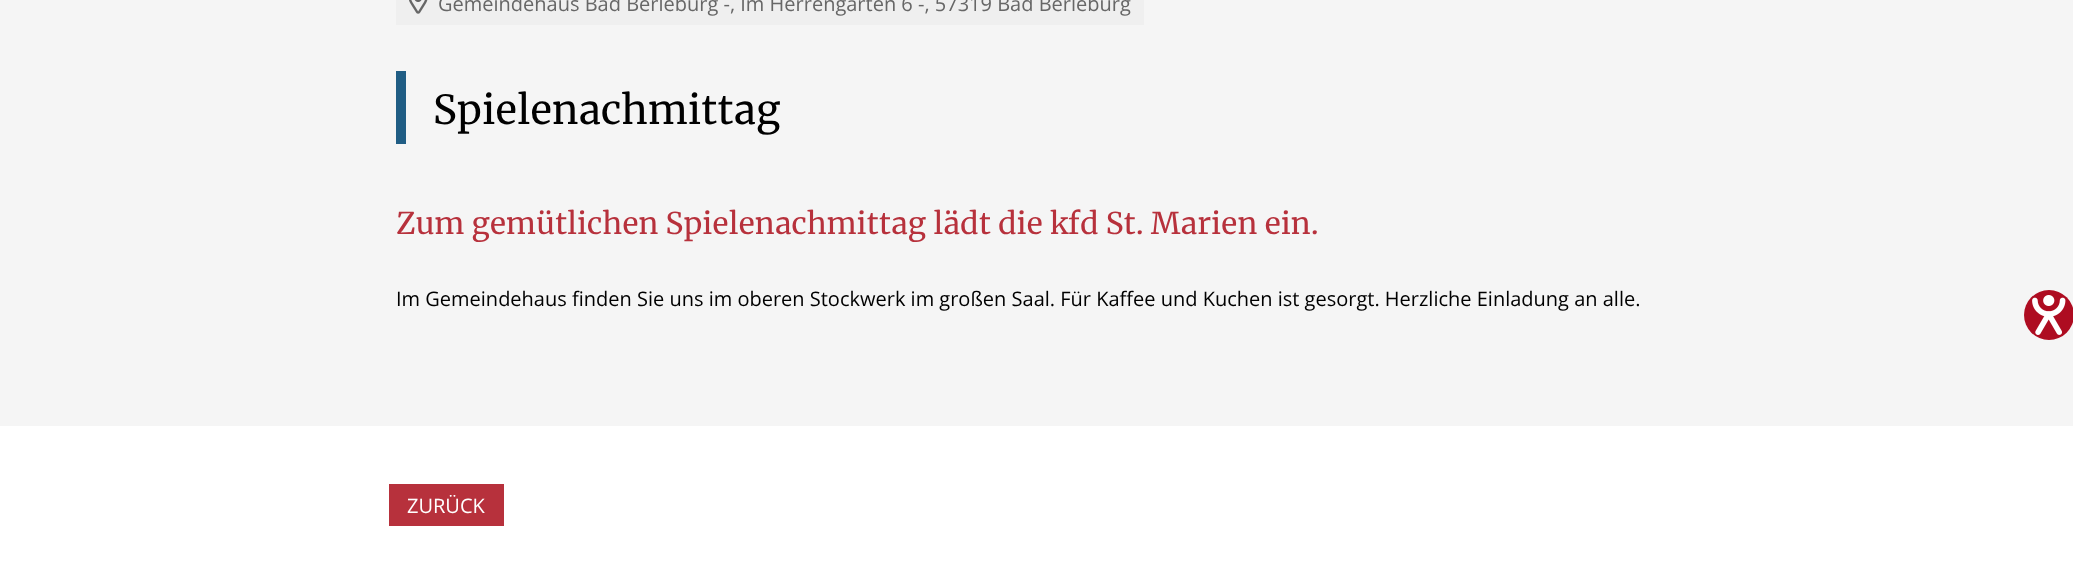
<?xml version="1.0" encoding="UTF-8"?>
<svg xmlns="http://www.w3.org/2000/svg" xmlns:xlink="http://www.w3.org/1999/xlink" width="2073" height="580">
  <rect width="100%" height="100%" fill="#ffffff" />
  <rect width="2073" height="426" fill="#f5f5f5" />
  <rect x="396" width="748" height="25" fill="#efefef" />
  <image x="409" y="0" width="19" height="14" xlink:href="image1.png" />
  <rect x="396" y="71" width="10" height="73" fill="#205d84" />
  <circle cx="2049" cy="315" r="25" fill="#ae0c21" />
  <image x="2032" y="295" width="34" height="40" xlink:href="image2.png" />
  <rect x="389" y="484" width="115" height="42" fill="#b7313c" />
  <text x="438" y="11" style="font-family: Open Sans; font-size: 20px; fill: #676767">Gemeindehaus Bad Berleburg -, Im Herrengarten 6 -, 57319 Bad Berleburg</text>
  <text x="433" y="124" style="font-family: Merriweather; font-size: 40px; fill: #000000">Spielenachmittag</text>
  <text x="396" y="234" style="font-family: Merriweather; font-size: 30px; fill: #b7313c">Zum gemütlichen Spielenachmittag lädt die kfd St. Marien ein.</text>
  <text x="396" y="306" style="font-family: Open Sans; font-size: 20px; fill: #000000">Im Gemeindehaus finden Sie uns im oberen Stockwerk im großen Saal. Für Kaffee und Kuchen ist gesorgt. Herzliche Einladung an alle.</text>
  <text x="407" y="513" style="font-family: Open Sans; font-size: 20px; fill: #ffffff">ZURÜCK</text>
</svg>
